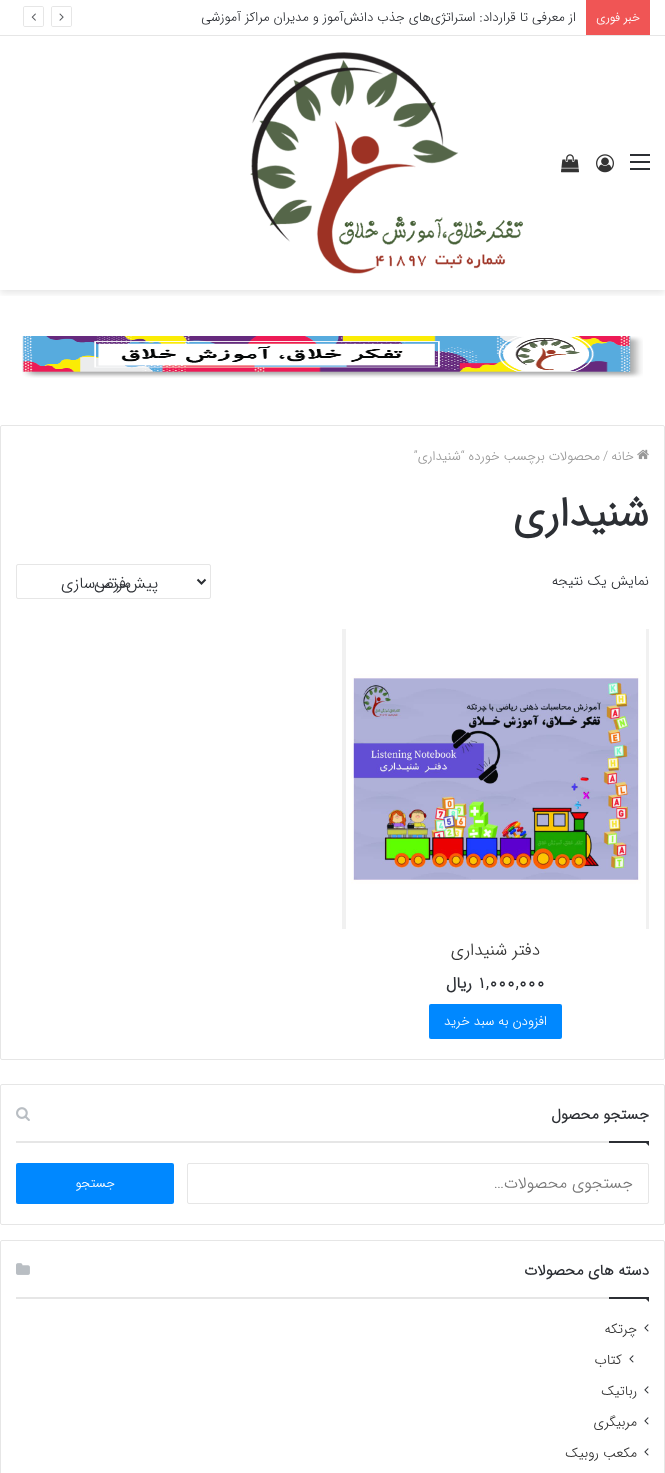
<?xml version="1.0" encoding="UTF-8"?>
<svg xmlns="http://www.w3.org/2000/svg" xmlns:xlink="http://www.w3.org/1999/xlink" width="665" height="1473">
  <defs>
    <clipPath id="clip1"><rect x="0" y="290" width="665" height="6" /></clipPath>
  </defs>
  <rect width="100%" height="100%" fill="#ffffff" />
  <g clip-path="url(#clip1)">
    <rect y="39" width="665" height="254" fill="#000000" fill-opacity="0.1" filter="blur(3.5px)" />
  </g>
  <rect y="35" width="665" height="1" fill="#e6e6e6" />
  <rect x="586" width="64" height="35" fill="#f05555" />
  <path d="M 70 26.5 h -17 c -1 0 -1.5 -0.5 -1.5 -1.5 v -17 c 0 -1 0.5 -1.5 1.5 -1.5 h 17 c 1 0 1.5 0.5 1.5 1.5 v 17 c 0 1 -0.5 1.5 -1.5 1.5 z" fill="none" stroke="#e6e6e6" />
  <image x="59" y="13" width="5" height="8" xlink:href="image1.png" />
  <path d="M 42 26.5 h -17 c -1 0 -1.5 -0.5 -1.5 -1.5 v -17 c 0 -1 0.5 -1.5 1.5 -1.5 h 17 c 1 0 1.5 0.5 1.5 1.5 v 17 c 0 1 -0.5 1.5 -1.5 1.5 z" fill="none" stroke="#e6e6e6" />
  <image x="31" y="13" width="5" height="8" xlink:href="image2.png" />
  <rect x="630" y="161" width="20" height="2" fill="#2c2f34" />
  <rect x="630" y="154" width="20" height="2" fill="#2c2f34" />
  <rect x="630" y="168" width="20" height="2" fill="#2c2f34" />
  <image x="596" y="154" width="18" height="19" xlink:href="image3.png" />
  <image x="561" y="154" width="18" height="19" xlink:href="image4.png" />
  <image x="250" y="52" width="273" height="222" xlink:href="image5.png" />
  <image x="22" y="336" width="621" height="42" xlink:href="image6.png" />
  <rect x="0.5" y="425.5" width="664" height="634" rx="1.5" fill="none" stroke="#e6e6e6" />
  <image x="637" y="449" width="12" height="11" xlink:href="image7.png" />
  <rect x="16.5" y="564.5" width="194" height="34" rx="1.5" fill="none" stroke="#e6e6e6" />
  <path d="M 197.5 579.5 l 4 4 l 4 -4" fill="none" stroke="#2c2f34" stroke-width="2" />
  <rect x="342" y="629" width="307" height="300" fill="#f1f1f1" />
  <image x="346" y="629" width="300" height="300" xlink:href="image8.png" />
  <rect x="429" y="1004" width="133" height="35" rx="2" fill="#0088ff" />
  <rect x="0.5" y="1084.5" width="664" height="140" rx="1.5" fill="none" stroke="#e6e6e6" />
  <rect x="16" y="1141" width="593" height="2" fill="#e6e6e6" />
  <image x="16" y="1107" width="14" height="14" xlink:href="image9.png" />
  <path d="M 644 1141 h 5 v 5 z" fill="#2c2f34" />
  <rect x="609" y="1141" width="40" height="2" fill="#2c2f34" />
  <rect x="187.5" y="1163.5" width="461" height="40" rx="1.5" fill="none" stroke="#e6e6e6" />
  <rect x="16" y="1163" width="158" height="41" rx="2" fill="#0088ff" />
  <rect x="0.5" y="1240.5" width="664" height="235" rx="1.5" fill="none" stroke="#e6e6e6" />
  <rect x="16" y="1297" width="593" height="2" fill="#e6e6e6" />
  <image x="16" y="1263" width="14" height="12" xlink:href="image10.png" />
  <path d="M 644 1297 h 5 v 5 z" fill="#2c2f34" />
  <rect x="609" y="1297" width="40" height="2" fill="#2c2f34" />
  <image x="644" y="1324" width="5" height="8" xlink:href="image11.png" />
  <image x="629" y="1355" width="5" height="8" xlink:href="image11.png" />
  <image x="644" y="1386" width="5" height="8" xlink:href="image11.png" />
  <image x="644" y="1417" width="5" height="8" xlink:href="image11.png" />
  <image x="644" y="1448" width="5" height="8" xlink:href="image11.png" />
  <text x="640" y="21" style="font-family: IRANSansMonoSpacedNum; font-size: 12px; font-weight: 300; direction: rtl; fill: #ffffff">خبر فوری</text>
  <text x="576" y="21" style="font-family: IRANSansMonoSpacedNum; font-size: 13px; font-weight: 300; direction: rtl; fill: #2c2f34">از معرفی تا قرارداد: استراتژی‌های جذب دانش‌آموز و مدیران مراکز آموزشی</text>
  <text x="634" y="460" style="font-family: IRANSansMonoSpacedNum; font-size: 13px; font-weight: 300; direction: rtl; fill: #999999">خانه</text>
  <text x="603" y="460" style="font-family: IRANSansMonoSpacedNum; font-size: 13px; font-weight: 300; fill: #999999">/</text>
  <text x="600" y="460" style="font-family: IRANSansMonoSpacedNum; font-size: 13px; font-weight: 300; direction: rtl; fill: #999999">محصولات برچسب خورده “شنیداری”</text>
  <text x="649" y="526" style="font-family: IRANSansMonoSpacedNum; font-size: 41px; font-weight: bold; direction: rtl; fill: #2c2f34">شنیداری</text>
  <text x="649" y="585" style="font-family: IRANSansMonoSpacedNum; font-size: 14px; font-weight: 300; direction: rtl; fill: #2c2f34">نمایش یک نتیجه</text>
  <text x="131" y="588" style="font-family: IRANSansMonoSpacedNum; font-size: 16px; font-weight: 300; direction: rtl; fill: #2c2f34">مرتب‌سازی</text>
  <text x="158" y="588" style="font-family: IRANSansMonoSpacedNum; font-size: 16px; font-weight: 300; direction: rtl; fill: #2c2f34">پیش‌فرض</text>
  <text x="540" y="955" style="font-family: IRANSansMonoSpacedNum; font-size: 17px; font-weight: 300; direction: rtl; fill: #333333">دفتر شنیداری</text>
  <text x="477" y="988" style="font-family: IRANSansMonoSpacedNum; font-size: 16px; font-weight: bold; fill: #2c2f34">1,000,000</text>
  <text x="472" y="988" style="font-family: IRANSansMonoSpacedNum; font-size: 16px; font-weight: bold; direction: rtl; fill: #2c2f34">ریال</text>
  <text x="547" y="1025" style="font-family: IRANSansMonoSpacedNum; font-size: 13px; font-weight: 300; direction: rtl; fill: #ffffff">افزودن به سبد خرید</text>
  <text x="649" y="1119" style="font-family: IRANSansMonoSpacedNum; font-size: 15px; font-weight: bold; direction: rtl; fill: #2c2f34">جستجو محصول</text>
  <text x="633" y="1188" style="font-family: IRANSansMonoSpacedNum; font-size: 16px; font-weight: 300; direction: rtl; fill: #757575">جستجوی محصولات…</text>
  <text x="115" y="1187" style="font-family: IRANSansMonoSpacedNum; font-size: 13px; font-weight: 300; direction: rtl; fill: #ffffff">جستجو</text>
  <text x="649" y="1275" style="font-family: IRANSansMonoSpacedNum; font-size: 15px; font-weight: bold; direction: rtl; fill: #2c2f34">دسته های محصولات</text>
  <text x="637" y="1333" style="font-family: IRANSansMonoSpacedNum; font-size: 13.5px; font-weight: 300; direction: rtl; fill: #333333">چرتکه</text>
  <text x="622" y="1364" style="font-family: IRANSansMonoSpacedNum; font-size: 14px; font-weight: 300; direction: rtl; fill: #333333">کتاب</text>
  <text x="637" y="1395" style="font-family: IRANSansMonoSpacedNum; font-size: 13.5px; font-weight: 300; direction: rtl; fill: #333333">رباتیک</text>
  <text x="637" y="1426" style="font-family: IRANSansMonoSpacedNum; font-size: 13.5px; font-weight: 300; direction: rtl; fill: #333333">مربیگری</text>
  <text x="637" y="1457" style="font-family: IRANSansMonoSpacedNum; font-size: 13.5px; font-weight: 300; direction: rtl; fill: #333333">مکعب روبیک</text>
</svg>
